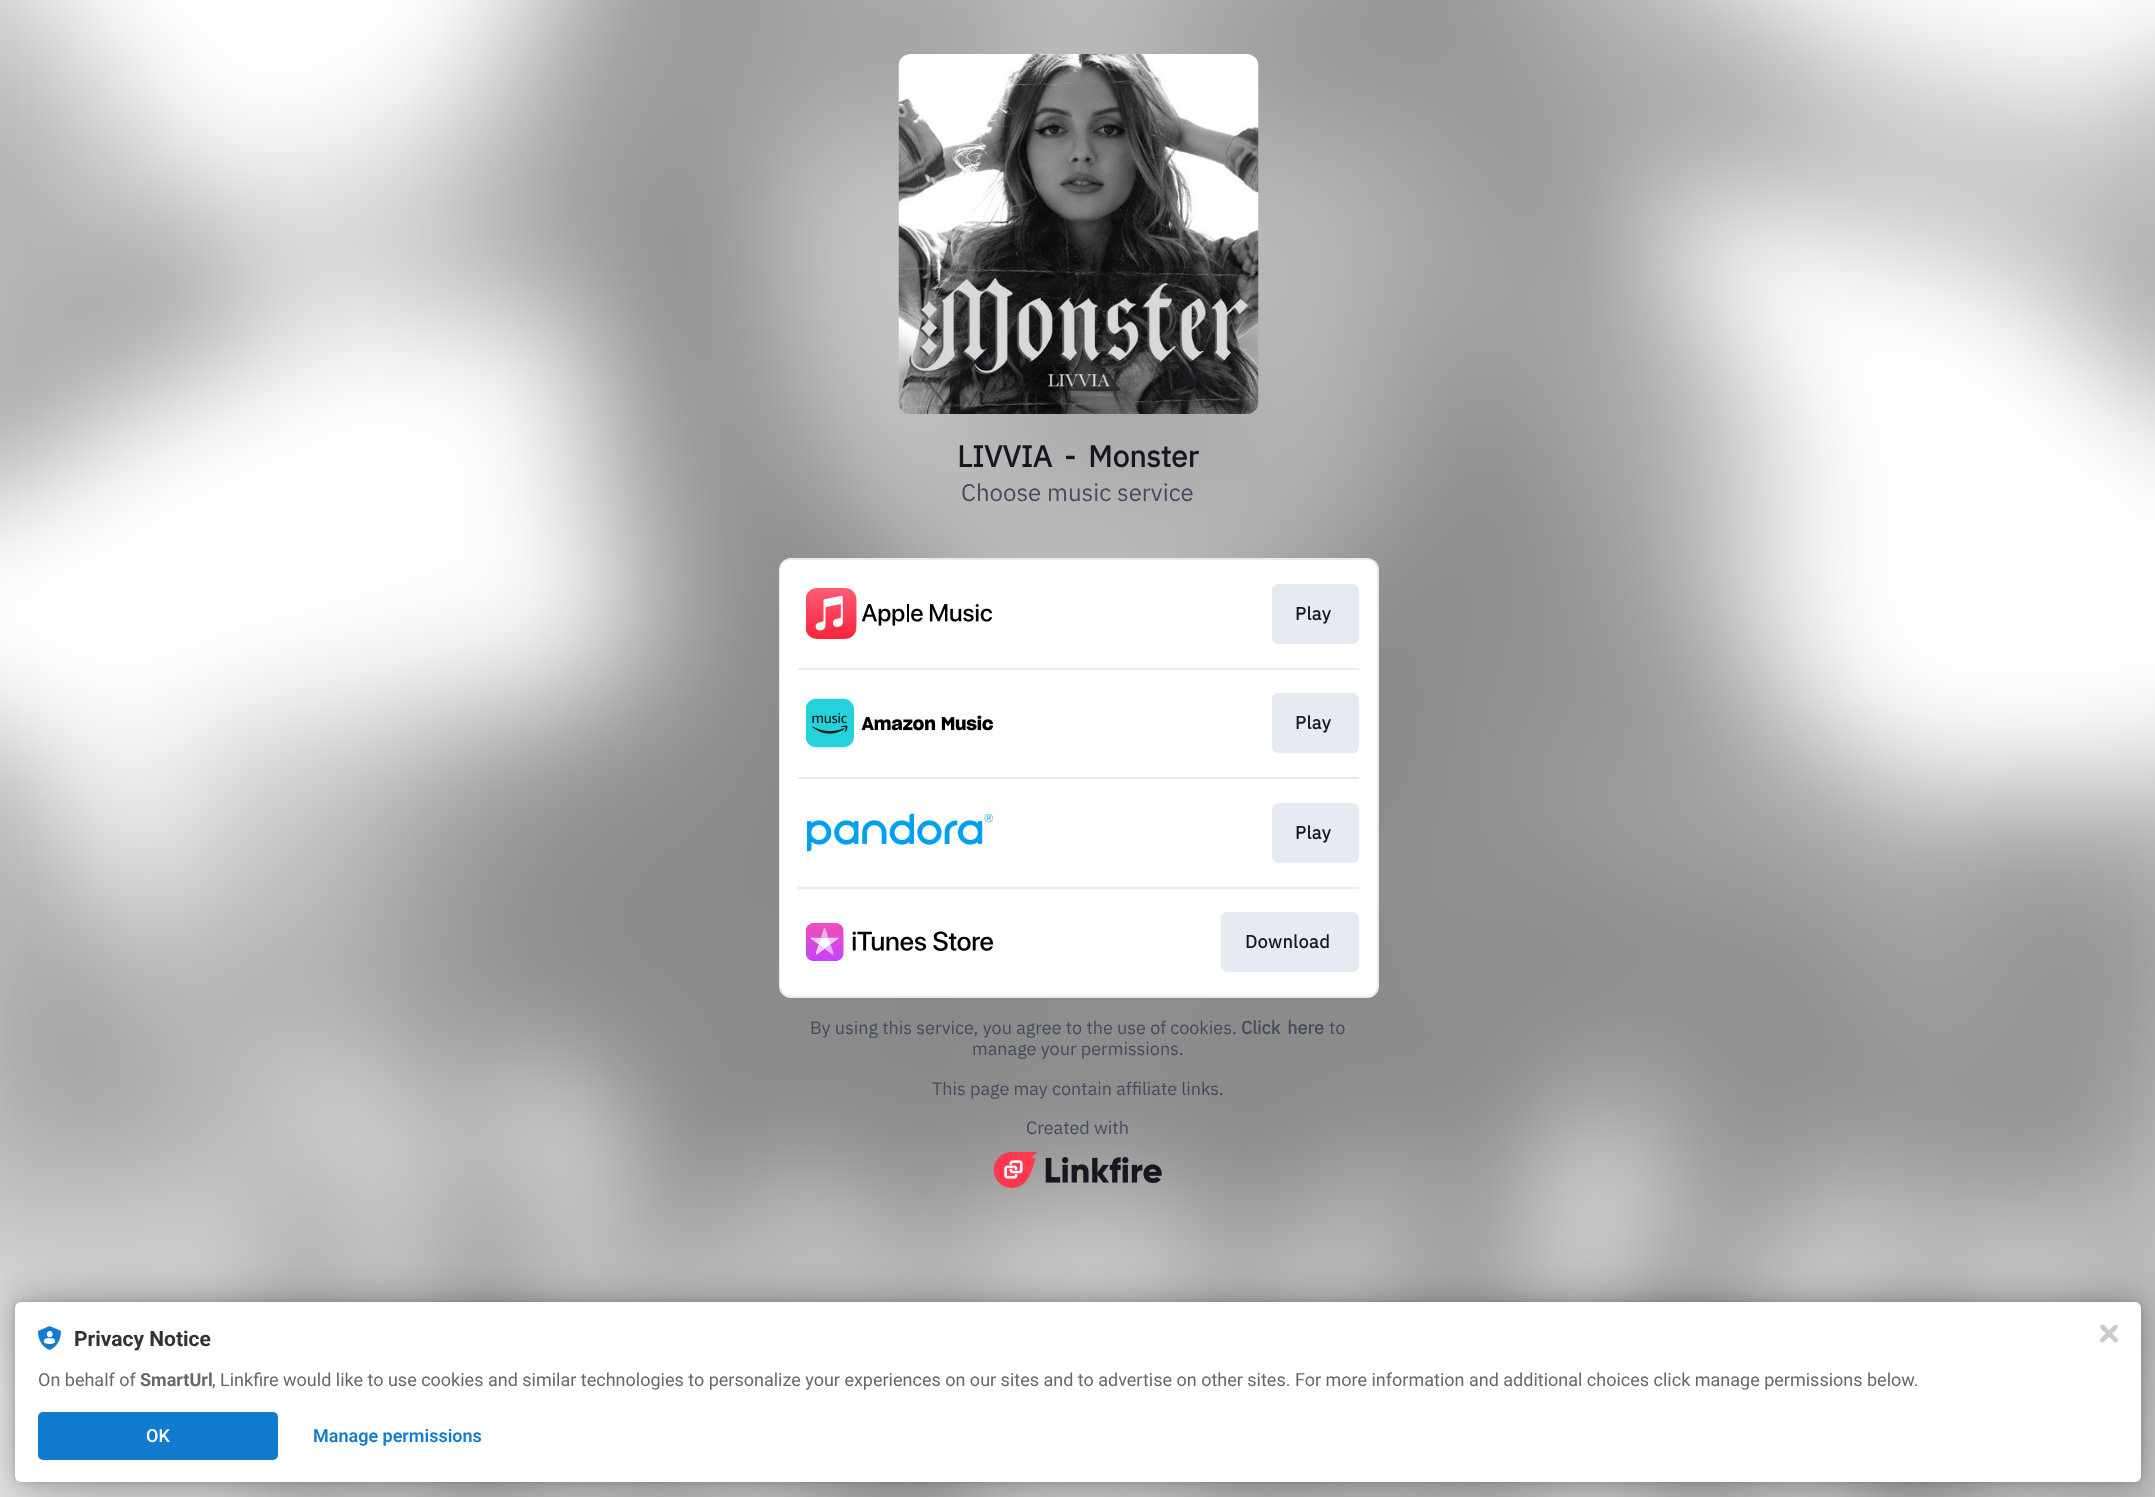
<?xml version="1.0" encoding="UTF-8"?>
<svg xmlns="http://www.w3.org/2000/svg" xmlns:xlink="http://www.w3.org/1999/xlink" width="2155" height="1497">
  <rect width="100%" height="100%" fill="#ffffff" />
  <image x="0" y="0" width="2155" height="1497" xlink:href="image1.png" />
  <image x="898" y="54" width="361" height="360" xlink:href="image2.png" />
  <rect x="780" y="559" width="598" height="438" rx="11" fill="#ffffff" stroke="#e6eaf2" stroke-width="2" />
  <rect x="780" y="560" width="597" height="436" rx="11" fill="#ffffff" />
  <image x="806" y="588" width="186" height="51" xlink:href="image3.png" />
  <rect x="1272" y="584" width="87" height="60" rx="6" fill="#e6eaf2" />
  <rect x="798" y="668" width="561" height="2" fill="#e6eaf2" />
  <image x="806" y="698" width="187" height="50" xlink:href="image4.png" />
  <rect x="1272" y="693" width="87" height="60" rx="6" fill="#e6eaf2" />
  <rect x="798" y="777" width="561" height="2" fill="#e6eaf2" />
  <image x="807" y="813" width="186" height="39" xlink:href="image5.png" />
  <rect x="1272" y="803" width="87" height="60" rx="6" fill="#e6eaf2" />
  <rect x="798" y="887" width="561" height="2" fill="#e6eaf2" />
  <image x="806" y="923" width="187" height="38" xlink:href="image6.png" />
  <rect x="1221" y="912" width="138" height="60" rx="6" fill="#e6eaf2" />
  <image x="993" y="1152" width="169" height="36" xlink:href="image7.png" />
  <rect x="15" y="1302" width="2126" height="180" rx="6" fill="#000000" fill-opacity="0.12" filter="blur(3px)" />
  <rect x="15" y="1302" width="2126" height="180" rx="6" fill="#000000" fill-opacity="0.3" filter="blur(18px)" />
  <rect x="15" y="1302" width="2126" height="180" rx="6" fill="#ffffff" />
  <image x="38" y="1326" width="23" height="24" xlink:href="image8.png" />
  <rect x="38" y="1412" width="240" height="48" rx="5" fill="#137bcf" />
  <image x="2100" y="1325" width="18" height="18" xlink:href="image9.png" />
  <text x="957" y="467" word-spacing="5" style="font-family: IBM Plex Sans; font-size: 30px; font-weight: bold; fill: #181721">LIVVIA - Monster</text>
  <text x="961" y="501" style="font-family: IBM Plex Sans; font-size: 24px; fill: #454b5f">Choose music service</text>
  <text x="1295" y="620" style="font-family: IBM Plex Sans; font-size: 18px; font-weight: bold; letter-spacing: 0.5px; fill: #181721">Play</text>
  <text x="1295" y="729" style="font-family: IBM Plex Sans; font-size: 18px; font-weight: bold; letter-spacing: 0.5px; fill: #181721">Play</text>
  <text x="1295" y="839" style="font-family: IBM Plex Sans; font-size: 18px; font-weight: bold; letter-spacing: 0.5px; fill: #181721">Play</text>
  <text x="1245" y="948" style="font-family: IBM Plex Sans; font-size: 18px; font-weight: bold; letter-spacing: 0.5px; fill: #181721">Download</text>
  <text x="810" y="1034" style="font-family: IBM Plex Sans; font-size: 18px; fill: #454b5f">By using this service, you agree to the use of cookies.</text>
  <text x="1241" y="1034" word-spacing="3" style="font-family: IBM Plex Sans; font-size: 18px; font-weight: bold; fill: #454b5f">Click here</text>
  <text x="1329" y="1034" style="font-family: IBM Plex Sans; font-size: 18px; fill: #454b5f">to</text>
  <text x="972" y="1055" style="font-family: IBM Plex Sans; font-size: 18px; fill: #454b5f">manage your permissions.</text>
  <text x="932" y="1095" style="font-family: IBM Plex Sans; font-size: 18px; fill: #454b5f">This page may contain affiliate links.</text>
  <text x="1026" y="1134" style="font-family: IBM Plex Sans; font-size: 18px; fill: #454b5f">Created with</text>
  <text x="74" y="1346" style="font-family: Roboto; font-size: 21px; font-weight: bold; fill: #323232">Privacy Notice</text>
  <text x="38" y="1386" style="font-family: Roboto; font-size: 18px; fill: #686868">On behalf of</text>
  <text x="140" y="1386" style="font-family: Roboto; font-size: 18px; font-weight: bold; fill: #686868">SmartUrl</text>
  <text x="212" y="1386" style="font-family: Roboto; font-size: 18px; fill: #686868">, Linkfire would like to use cookies and similar technologies to personalize your experiences on our sites and to advertise on other sites. For more information and additional choices click manage permissions below.</text>
  <text x="146" y="1442" style="font-family: Roboto; font-size: 18px; font-weight: 500; fill: #ffffff">OK</text>
  <text x="313" y="1442" style="font-family: Roboto; font-size: 18px; font-weight: 600; fill: #137bcf">Manage permissions</text>
</svg>
